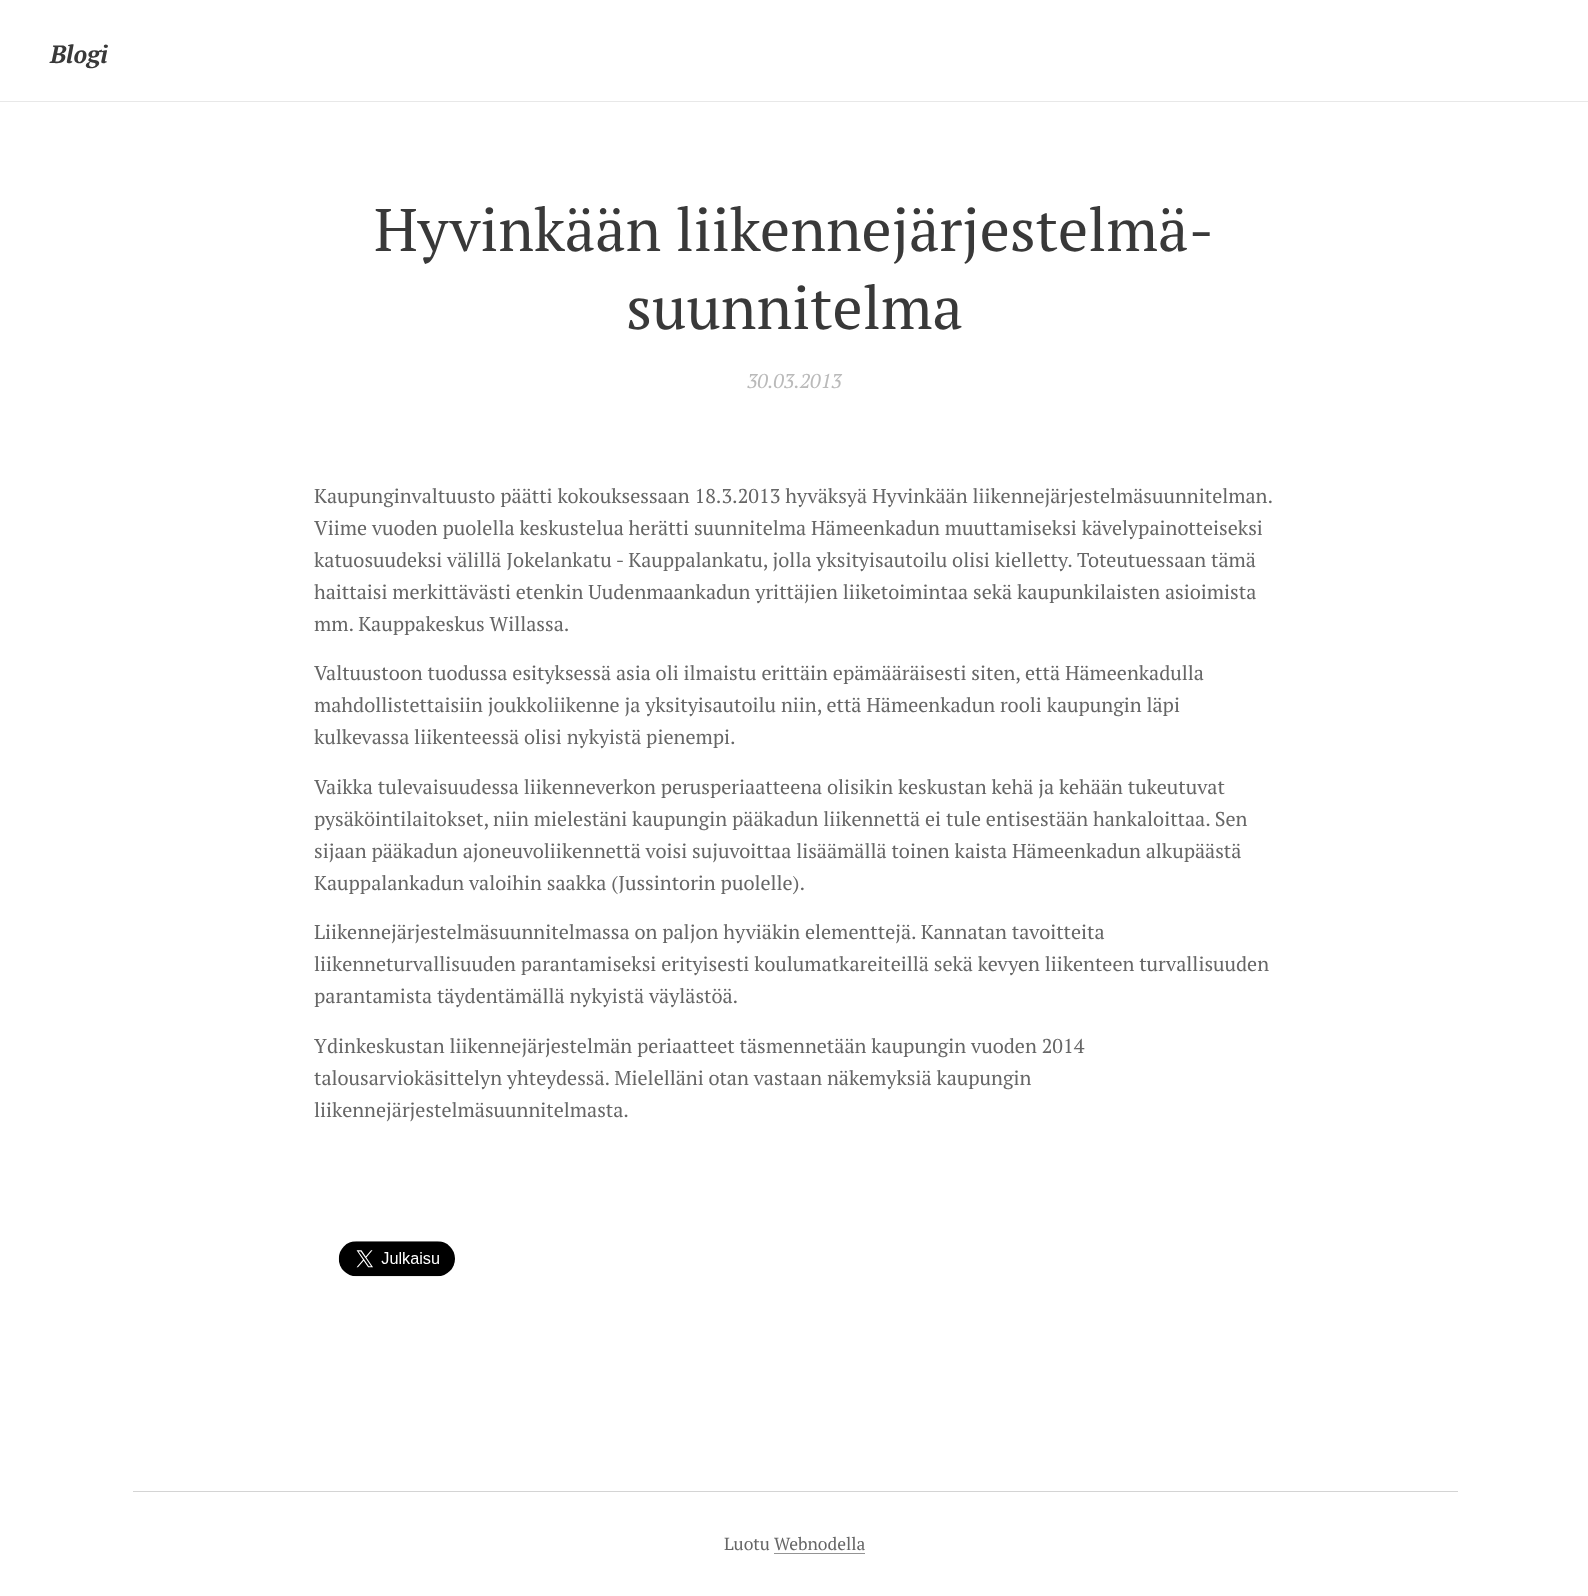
<?xml version="1.0" encoding="UTF-8"?>
<svg xmlns="http://www.w3.org/2000/svg" xmlns:xlink="http://www.w3.org/1999/xlink" width="1588" height="1596">
  <rect width="100%" height="100%" fill="#ffffff" />
  <rect y="101" width="1588" height="1" fill="#e8e8e8" />
  <image x="338" y="1241" width="117" height="36" xlink:href="image1.png" />
  <rect x="133" y="1491" width="1325" height="1" fill="#d4d4d4" />
  <rect x="774" y="1553" width="91" height="1" fill="#949494" />
  <text x="50" y="63" style="font-family: PT Serif; font-size: 25px; font-weight: bold; font-style: italic; fill: #393939">Blogi</text>
  <text x="374" y="251" style="font-family: PT Serif; font-size: 60px; fill: #393939">Hyvinkään liikennejärjestelmä-</text>
  <text x="626" y="329" style="font-family: PT Serif; font-size: 60px; fill: #393939">suunnitelma</text>
  <text x="747" y="388" style="font-family: PT Serif; font-size: 20px; font-style: italic; fill: #bababa">30.03.2013</text>
  <text x="314" y="503" style="font-family: PT Serif; font-size: 20px; fill: #666666">Kaupunginvaltuusto päätti kokouksessaan 18.3.2013 hyväksyä Hyvinkään liikennejärjestelmäsuunnitelman.</text>
  <text x="314" y="535" style="font-family: PT Serif; font-size: 20px; fill: #666666">Viime vuoden puolella keskustelua herätti suunnitelma Hämeenkadun muuttamiseksi kävelypainotteiseksi</text>
  <text x="314" y="567" style="font-family: PT Serif; font-size: 20px; fill: #666666">katuosuudeksi välillä Jokelankatu - Kauppalankatu, jolla yksityisautoilu olisi kielletty. Toteutuessaan tämä</text>
  <text x="314" y="599" style="font-family: PT Serif; font-size: 20px; fill: #666666">haittaisi merkittävästi etenkin Uudenmaankadun yrittäjien liiketoimintaa sekä kaupunkilaisten asioimista</text>
  <text x="314" y="631" style="font-family: PT Serif; font-size: 20px; fill: #666666">mm. Kauppakeskus Willassa.</text>
  <text x="314" y="680" style="font-family: PT Serif; font-size: 20px; fill: #666666">Valtuustoon tuodussa esityksessä asia oli ilmaistu erittäin epämääräisesti siten, että Hämeenkadulla</text>
  <text x="314" y="712" style="font-family: PT Serif; font-size: 20px; fill: #666666">mahdollistettaisiin joukkoliikenne ja yksityisautoilu niin, että Hämeenkadun rooli kaupungin läpi</text>
  <text x="314" y="744" style="font-family: PT Serif; font-size: 20px; fill: #666666">kulkevassa liikenteessä olisi nykyistä pienempi.</text>
  <text x="314" y="794" style="font-family: PT Serif; font-size: 20px; fill: #666666">Vaikka tulevaisuudessa liikenneverkon perusperiaatteena olisikin keskustan kehä ja kehään tukeutuvat</text>
  <text x="314" y="826" style="font-family: PT Serif; font-size: 20px; fill: #666666">pysäköintilaitokset, niin mielestäni kaupungin pääkadun liikennettä ei tule entisestään hankaloittaa. Sen</text>
  <text x="314" y="858" style="font-family: PT Serif; font-size: 20px; fill: #666666">sijaan pääkadun ajoneuvoliikennettä voisi sujuvoittaa lisäämällä toinen kaista Hämeenkadun alkupäästä</text>
  <text x="314" y="890" style="font-family: PT Serif; font-size: 20px; fill: #666666">Kauppalankadun valoihin saakka (Jussintorin puolelle).</text>
  <text x="314" y="939" style="font-family: PT Serif; font-size: 20px; fill: #666666">Liikennejärjestelmäsuunnitelmassa on paljon hyviäkin elementtejä. Kannatan tavoitteita</text>
  <text x="314" y="971" style="font-family: PT Serif; font-size: 20px; fill: #666666">liikenneturvallisuuden parantamiseksi erityisesti koulumatkareiteillä sekä kevyen liikenteen turvallisuuden</text>
  <text x="314" y="1003" style="font-family: PT Serif; font-size: 20px; fill: #666666">parantamista täydentämällä nykyistä väylästöä.</text>
  <text x="314" y="1053" style="font-family: PT Serif; font-size: 20px; fill: #666666">Ydinkeskustan liikennejärjestelmän periaatteet täsmennetään kaupungin vuoden 2014</text>
  <text x="314" y="1085" style="font-family: PT Serif; font-size: 20px; fill: #666666">talousarviokäsittelyn yhteydessä. Mielelläni otan vastaan näkemyksiä kaupungin</text>
  <text x="314" y="1117" style="font-family: PT Serif; font-size: 20px; fill: #666666">liikennejärjestelmäsuunnitelmasta.</text>
  <text x="724" y="1550" style="font-family: PT Serif; font-size: 17.5px; fill: #666666">Luotu Webnodella</text>
</svg>
